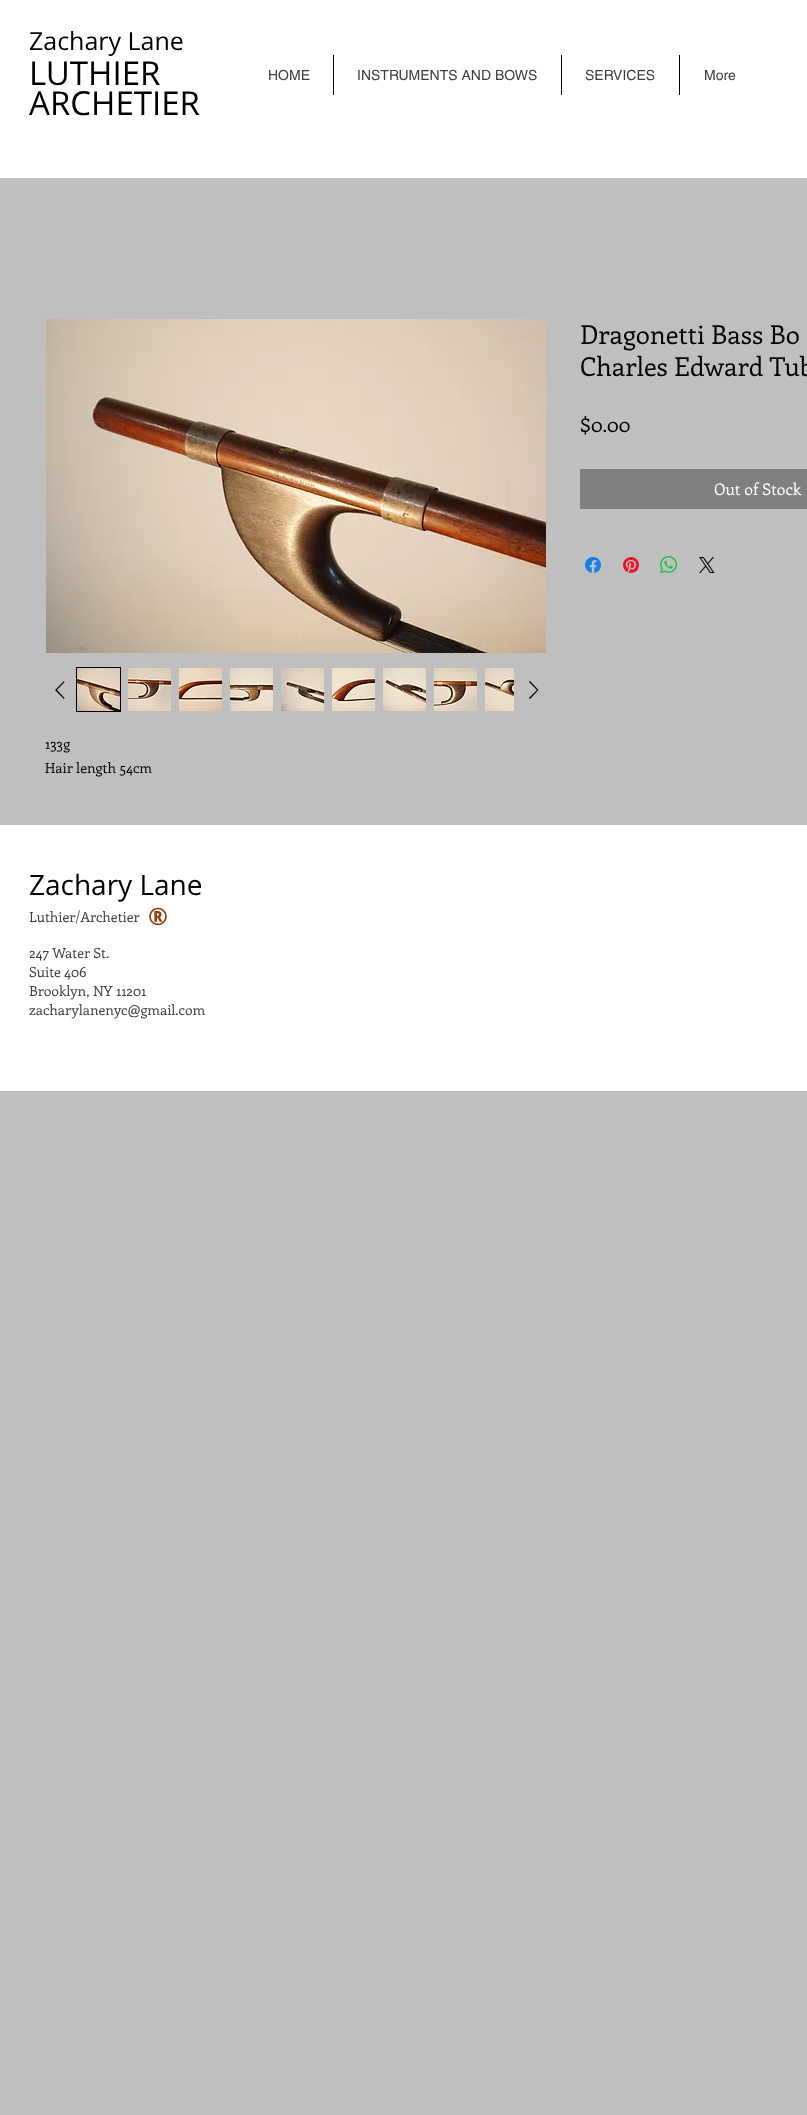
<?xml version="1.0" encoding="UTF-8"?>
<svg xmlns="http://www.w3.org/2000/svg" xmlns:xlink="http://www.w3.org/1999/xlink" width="807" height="2115">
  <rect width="100%" height="100%" fill="#bfbfbf" />
  <rect width="807" height="178" fill="#ffffff" />
  <rect x="333" y="55" width="1" height="40" fill="#000000" />
  <rect x="561" y="55" width="1" height="40" fill="#000000" />
  <rect x="679" y="55" width="1" height="40" fill="#000000" />
  <rect x="580" y="469" width="227" height="40" fill="#808080" />
  <image x="585" y="557" width="16" height="16" xlink:href="image1.png" />
  <image x="623" y="557" width="16" height="16" xlink:href="image2.png" />
  <image x="660" y="556" width="17" height="17" xlink:href="image3.png" />
  <image x="699" y="557" width="16" height="16" xlink:href="image4.png" />
  <image x="46" y="319" width="500" height="334" xlink:href="image5.png" />
  <path d="M 64 681 l 0.5 1 l -7.5 8 l 7.5 8 l -0.5 1 l -9 -9 z" fill="#000000" fill-rule="evenodd" />
  <rect x="76.5" y="667.5" width="44" height="44" fill="none" stroke="#000000" />
  <image x="77" y="668" width="43" height="43" xlink:href="image6.png" />
  <image x="128" y="668" width="43" height="43" xlink:href="image7.png" />
  <image x="179" y="668" width="43" height="43" xlink:href="image8.png" />
  <image x="230" y="668" width="43" height="43" xlink:href="image9.png" />
  <image x="281" y="668" width="43" height="43" xlink:href="image10.png" />
  <image x="332" y="668" width="43" height="43" xlink:href="image11.png" />
  <image x="383" y="668" width="43" height="43" xlink:href="image12.png" />
  <image x="434" y="668" width="43" height="43" xlink:href="image13.png" />
  <image x="485" y="668" width="29" height="43" xlink:href="image14.png" />
  <path d="M 530 681 l 8.5 9 l -8.5 9 l -1 -1 l 8 -8 l -8 -8 z" fill="#000000" fill-rule="evenodd" />
  <rect y="825" width="807" height="266" fill="#ffffff" />
  <text x="29" y="50" style="font-family: Open Sans; font-size: 25px; fill: #000000">Zachary Lane</text>
  <text x="29" y="85" style="font-family: Open Sans; font-size: 33px; fill: #000000">LUTHIER</text>
  <text x="29" y="115" style="font-family: Open Sans; font-size: 33px; fill: #000000">ARCHETIER</text>
  <text x="268" y="80" style="font-family: helvetica; font-size: 14px; fill: #404040">HOME</text>
  <text x="357" y="80" style="font-family: helvetica; font-size: 14px; fill: #404040">INSTRUMENTS AND BOWS</text>
  <text x="585" y="80" style="font-family: helvetica; font-size: 14px; fill: #404040">SERVICES</text>
  <text x="704" y="80" style="font-family: helvetica; font-size: 14px; fill: #404040">More</text>
  <text x="580" y="344" style="font-family: Enriqueta; font-size: 26px; fill: #000000">Dragonetti Bass Bo</text>
  <text x="580" y="376" style="font-family: Enriqueta; font-size: 26px; fill: #000000">Charles Edward Tub</text>
  <text x="580" y="432" style="font-family: Enriqueta; font-size: 20px; fill: #000000">$0.00</text>
  <text x="714" y="495" style="font-family: Enriqueta; font-size: 16px; fill: #ffffff">Out of Stock</text>
  <text x="45" y="749" style="font-family: Enriqueta; font-size: 14px; fill: #000000">133g</text>
  <text x="45" y="773" style="font-family: Enriqueta; font-size: 14px; fill: #000000">Hair length 54cm</text>
  <text x="29" y="895" style="font-family: Open Sans; font-size: 28px; fill: #000000">Zachary Lane</text>
  <text x="29" y="922" style="font-family: Enriqueta; font-size: 14px; fill: #404040">Luthier/Archetier</text>
  <text x="148" y="925" style="font-family: Open Sans; font-size: 24px; font-weight: bold; fill: #933f0b">®</text>
  <text x="29" y="958" style="font-family: Enriqueta; font-size: 14px; fill: #404040">247 Water St.</text>
  <text x="29" y="977" style="font-family: Enriqueta; font-size: 14px; fill: #404040">Suite 406</text>
  <text x="29" y="996" style="font-family: Enriqueta; font-size: 14px; fill: #404040">Brooklyn, NY 11201</text>
  <text x="29" y="1015" style="font-family: Enriqueta; font-size: 14px; fill: #404040">zacharylanenyc@gmail.com</text>
</svg>
